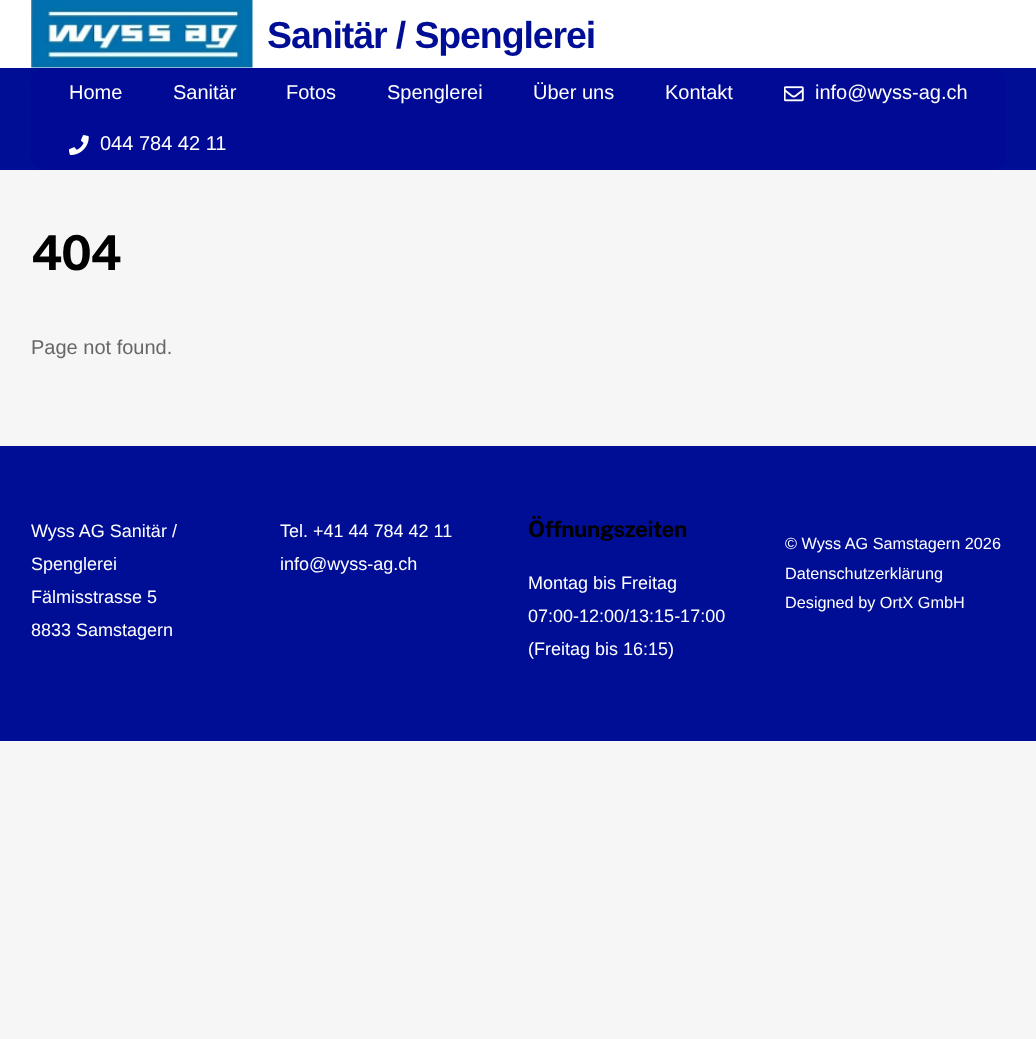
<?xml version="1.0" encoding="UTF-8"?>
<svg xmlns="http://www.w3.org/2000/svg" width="1036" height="1039">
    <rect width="100%" height="100%" fill="#F6F6F6"/>
    <rect x="0" y="0" width="1036" height="68" fill="#FFFFFF"/>
    <image x="31" y="0" width="222" height="68" href="img_01.png"/>
    <text x="267" y="48" font-family="Liberation Sans" font-size="37.5" font-weight="700" letter-spacing="-1.1" fill="#000E95">Sanitär / Spenglerei</text>
    <rect x="0" y="68" width="1036" height="102" fill="#000E95"/>
    <rect x="31" y="68" width="974" height="102" rx="15" fill="#000A94"/>
    <text x="69" y="99" font-family="Liberation Sans" font-size="20" fill="#FFFFFF">Home</text>
    <text x="173" y="99" font-family="Liberation Sans" font-size="20" fill="#FFFFFF">Sanitär</text>
    <text x="286" y="99" font-family="Liberation Sans" font-size="20" fill="#FFFFFF">Fotos</text>
    <text x="387" y="99" font-family="Liberation Sans" font-size="20" fill="#FFFFFF">Spenglerei</text>
    <text x="533" y="99" font-family="Liberation Sans" font-size="20" fill="#FFFFFF">Über uns</text>
    <text x="665" y="99" font-family="Liberation Sans" font-size="20" fill="#FFFFFF">Kontakt</text>
    <image x="784" y="86" width="20" height="16" href="img_02.png"/>
    <text x="815" y="99" font-family="Liberation Sans" font-size="20" fill="#FFFFFF">info@wyss-ag.ch</text>
    <image x="69" y="135" width="20" height="20" href="img_03.png"/>
    <text x="100" y="150" font-family="Liberation Sans" font-size="20" fill="#FFFFFF">044 784 42 11</text>
    <text x="31" y="270" font-family="Public Sans" font-size="48" font-weight="700" letter-spacing="-1.5" fill="#000000">404</text>
    <text x="31" y="354" font-family="Liberation Sans" font-size="20" fill="#666666">Page not found.</text>
    <rect x="0" y="447" width="1036" height="294" fill="#000E95"/>
    <rect x="0" y="446" width="1036" height="1" fill="#000D8E"/>
    <text font-family="Liberation Sans" font-size="18" fill="#FFFFFF">
        <tspan x="31" y="537">Wyss AG Sanitär /</tspan>
        <tspan x="31" y="570">Spenglerei</tspan>
        <tspan x="31" y="603">Fälmisstrasse 5</tspan>
        <tspan x="31" y="636">8833 Samstagern</tspan>
    </text>
    <text font-family="Liberation Sans" font-size="18" fill="#FFFFFF">
        <tspan x="280" y="537">Tel. +41 44 784 42 11</tspan>
        <tspan x="280" y="570">info@wyss-ag.ch</tspan>
    </text>
    <text x="528" y="537" font-family="Public Sans" font-size="22.5" font-weight="700" letter-spacing="-0.5" fill="#000000">Öffnungszeiten</text>
    <text font-family="Liberation Sans" font-size="18" fill="#FFFFFF">
        <tspan x="528" y="589">Montag bis Freitag</tspan>
        <tspan x="528" y="622">07:00-12:00/13:15-17:00</tspan>
        <tspan x="528" y="655">(Freitag bis 16:15)</tspan>
    </text>
    <text font-family="Liberation Sans" font-size="16.25" fill="#FFFFFF">
        <tspan x="785" y="549">© Wyss AG Samstagern 2026</tspan>
        <tspan x="785" y="579">Datenschutzerklärung</tspan>
        <tspan x="785" y="608">Designed by OrtX GmbH</tspan>
    </text>
</svg>
